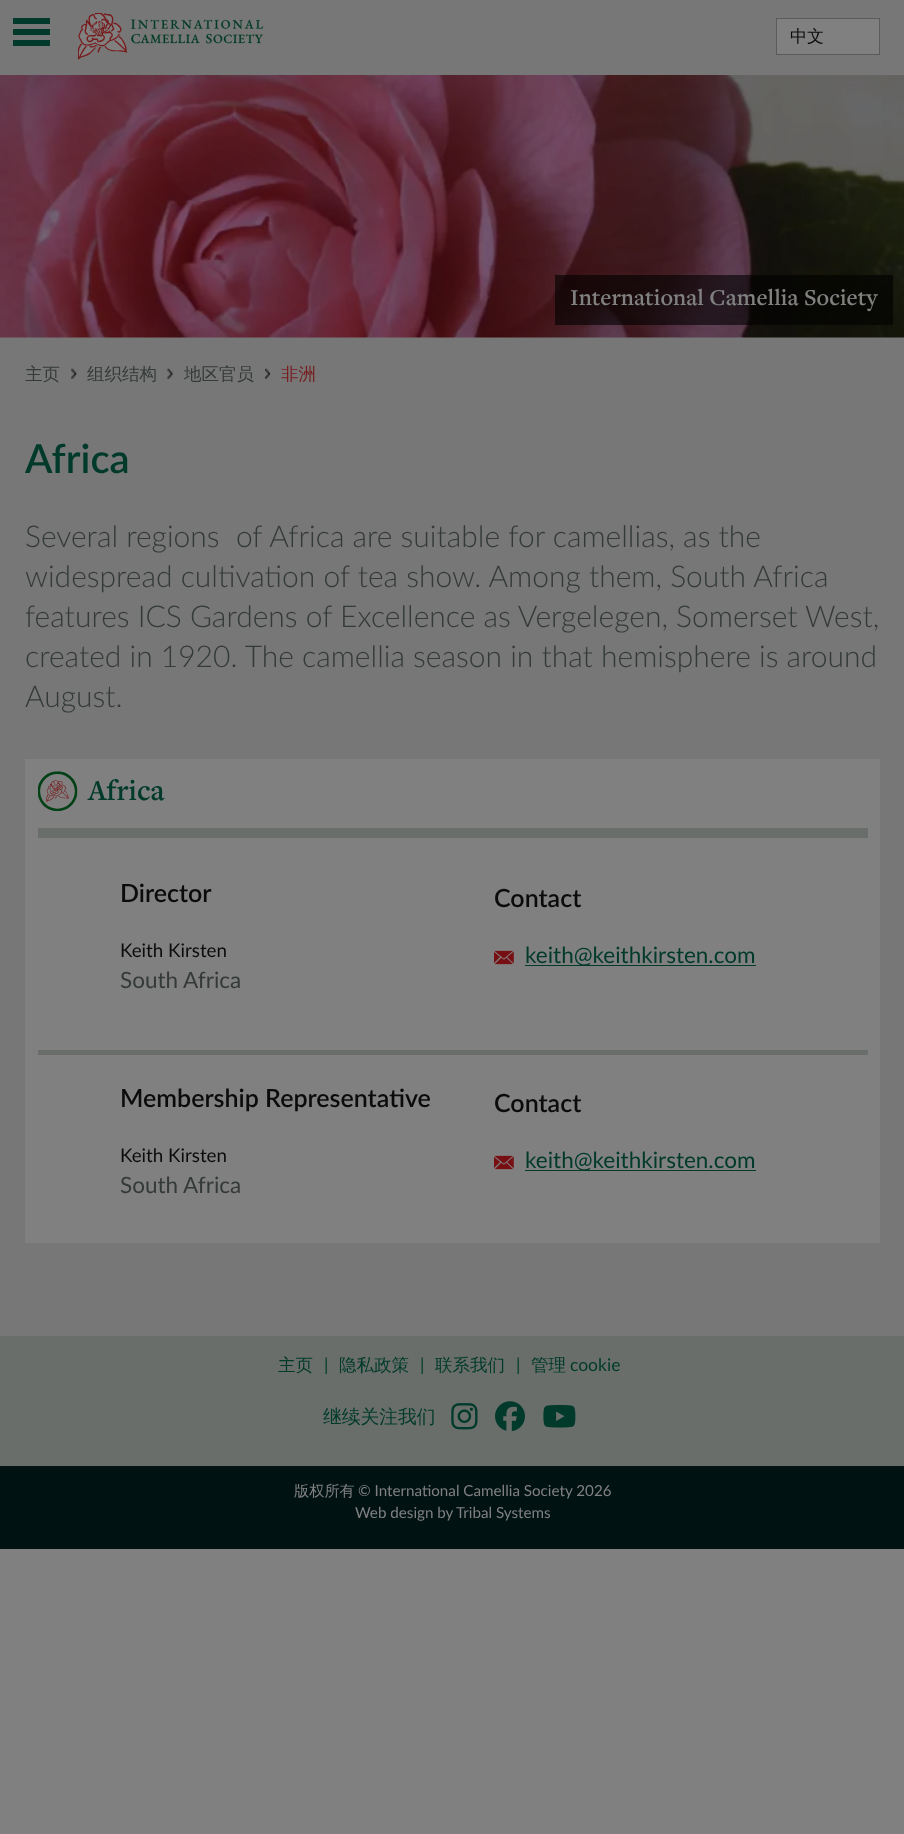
<?xml version="1.0" encoding="UTF-8"?>
<svg xmlns="http://www.w3.org/2000/svg" width="904" height="1834">
    <rect width="100%" height="100%" fill="#808080"/>
    <rect x="0" y="1466" width="904" height="83" fill="#011213"/>
    <rect x="0" y="0" width="904" height="75" fill="#777777"/>
    <rect x="13" y="18" width="37" height="6" fill="#013A2A"/>
    <rect x="13" y="29" width="37" height="6" fill="#013A2A"/>
    <rect x="13" y="40" width="37" height="6" fill="#013A2A"/>
    <image x="78" y="13" width="186" height="47" href="img_01.png"/>
    <rect x="776.5" y="18.5" width="103" height="36" fill="#808080" stroke="#5B5B5B"/>
    <text x="790" y="42" font-family="WenQuanYi Zen Hei" font-size="17" font-weight="500" fill="#0B0B0B">中文</text>
    <rect x="0" y="337" width="904" height="999" fill="#777777"/>
    <image x="0" y="75" width="904" height="263" href="img_02.png"/>
    <rect x="555" y="275" width="338" height="50" fill="#000000" fill-opacity="0.6"/>
    <text x="570" y="305" font-family="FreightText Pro" font-size="23.6" font-weight="600" fill="#808080">International Camellia Society</text>
    <text x="25" y="380" font-family="WenQuanYi Zen Hei" font-size="17.5" font-weight="500" fill="#343A37">主页</text>
    <image x="71" y="368" width="6" height="11" href="img_03.png"/>
    <text x="87" y="380" font-family="WenQuanYi Zen Hei" font-size="17.5" font-weight="500" fill="#343A37">组织结构</text>
    <image x="167" y="368" width="6" height="11" href="img_04.png"/>
    <text x="184" y="380" font-family="WenQuanYi Zen Hei" font-size="17.5" font-weight="500" fill="#343A37">地区官员</text>
    <image x="265" y="368" width="5" height="11" href="img_05.png"/>
    <text x="281" y="380" font-family="WenQuanYi Zen Hei" font-size="17.5" font-weight="500" fill="#771B1D">非洲</text>
    <text x="25" y="473" font-family="Lato" font-size="40" font-weight="600" fill="#013A2A">Africa</text>
    <text font-family="Lato" font-size="30" font-weight="300" fill="#343A37" xml:space="preserve"><tspan x="25" y="547">Several regions  of Africa are suitable for camellias, as the</tspan><tspan x="25" y="587">widespread cultivation of tea show. Among them, South Africa</tspan><tspan x="25" y="627">features ICS Gardens of Excellence as Vergelegen, Somerset West,</tspan><tspan x="25" y="667">created in 1920. The camellia season in that hemisphere is around</tspan><tspan x="25" y="707">August.</tspan></text>
    <rect x="25" y="759" width="855" height="484" fill="#808080"/>
    <image x="38" y="771" width="40" height="40" href="img_06.png"/>
    <rect x="38" y="828" width="830" height="10" fill="#696E6B"/>
    <text x="88" y="800" font-family="FreightText Pro" font-size="30" font-weight="600" fill="#013A2A">Africa</text>
    <rect x="38" y="1050" width="830" height="5" fill="#696E6B"/>
    <text x="120" y="902" font-family="Lato" font-size="25" font-weight="600" fill="#0B0B0B">Director</text>
    <text x="120" y="957" font-family="Lato" font-size="18.75" fill="#0B0B0B">Keith Kirsten</text>
    <text x="120" y="988" font-family="Lato" font-size="22.5" fill="#343A37">South Africa</text>
    <text x="494" y="907" font-family="Lato" font-size="25" font-weight="600" fill="#0B0B0B">Contact</text>
    <image x="494" y="950" width="20" height="15" href="img_07.png"/>
    <rect x="525" y="965" width="231" height="1" fill="#013A2A"/>
    <text x="525" y="963" font-family="Lato" font-size="22.5" fill="#013A2A">keith@keithkirsten.com</text>
    <text x="120" y="1107" font-family="Lato" font-size="25" font-weight="600" fill="#0B0B0B">Membership Representative</text>
    <text x="120" y="1162" font-family="Lato" font-size="18.75" fill="#0B0B0B">Keith Kirsten</text>
    <text x="120" y="1193" font-family="Lato" font-size="22.5" fill="#343A37">South Africa</text>
    <text x="494" y="1112" font-family="Lato" font-size="25" font-weight="600" fill="#0B0B0B">Contact</text>
    <image x="494" y="1155" width="20" height="15" href="img_07.png"/>
    <rect x="525" y="1170" width="231" height="1" fill="#013A2A"/>
    <text x="525" y="1168" font-family="Lato" font-size="22.5" fill="#013A2A">keith@keithkirsten.com</text>
    <rect x="0" y="1336" width="904" height="130" fill="#696E6B"/>
    <text x="278" y="1371" font-family="WenQuanYi Zen Hei" font-size="17.5" font-weight="500" fill="#013A2A">主页</text>
    <text x="324" y="1371" font-family="Lato" font-size="17.5" fill="#013A2A">|</text>
    <text x="339" y="1371" font-family="WenQuanYi Zen Hei" font-size="17.5" font-weight="500" fill="#013A2A">隐私政策</text>
    <text x="420" y="1371" font-family="Lato" font-size="17.5" fill="#013A2A">|</text>
    <text x="435" y="1371" font-family="WenQuanYi Zen Hei" font-size="17.5" font-weight="500" fill="#013A2A">联系我们</text>
    <text x="516" y="1371" font-family="Lato" font-size="17.5" fill="#013A2A">|</text>
    <text x="531" y="1371" font-family="WenQuanYi Zen Hei" font-size="17.5" font-weight="500" fill="#013A2A">管理</text>
    <text x="570" y="1371" font-family="Lato" font-size="17.5" fill="#013A2A">cookie</text>
    <text x="323" y="1423" font-family="WenQuanYi Zen Hei" font-size="18.75" font-weight="500" fill="#013A2A">继续关注我们</text>
    <image x="451" y="1403" width="27" height="27" href="img_08.png"/>
    <image x="495" y="1401" width="30" height="31" href="img_09.png"/>
    <image x="543" y="1405" width="33" height="23" href="img_10.png"/>
    <text x="294" y="1496" font-family="WenQuanYi Zen Hei" font-size="15.2" font-weight="500" fill="#808080">版权所有</text>
    <text x="358" y="1496" font-family="Lato" font-size="15.2" fill="#808080">© International Camellia Society 2026</text>
    <text x="355" y="1518" font-family="Lato" font-size="15.2" fill="#808080">Web design by</text>
    <text x="456" y="1518" font-family="Lato" font-size="15.2" fill="#808080">Tribal Systems</text>
</svg>
